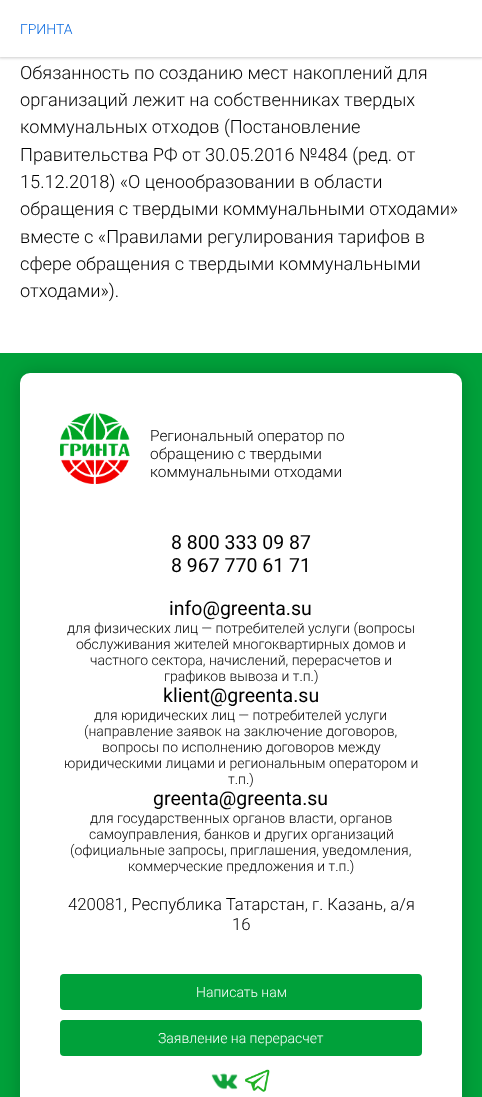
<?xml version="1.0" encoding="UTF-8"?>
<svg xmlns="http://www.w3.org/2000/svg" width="482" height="1097">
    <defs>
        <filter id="blur1" x="-50%" y="-200%" width="200%" height="500%"><feGaussianBlur stdDeviation="1.5"/></filter>
        <filter id="blur2" x="-50%" y="-200%" width="200%" height="500%"><feGaussianBlur stdDeviation="10"/></filter>
    </defs>
    <rect width="100%" height="100%" fill="#FFFFFF"/>
    <rect x="-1" y="-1" width="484" height="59" fill="#000000" fill-opacity="0.2" filter="url(#blur1)"/>
    <rect x="0" y="0" width="482" height="57" fill="#FFFFFF"/>
    <text x="20" y="34" font-family="Roboto" font-size="14" font-weight="300" fill="#0B6AE0">ГРИНТА</text>
    <text font-family="Roboto" font-size="18.2" font-weight="300" fill="#000000">
        <tspan x="20" y="79">Обязанность по созданию мест накоплений для</tspan>
        <tspan x="20" y="106">организаций лежит на собственниках твердых</tspan>
        <tspan x="20" y="133">коммунальных отходов (Постановление</tspan>
        <tspan x="20" y="161">Правительства РФ от 30.05.2016 №484 (ред. от</tspan>
        <tspan x="20" y="188">15.12.2018) «О ценообразовании в области</tspan>
        <tspan x="20" y="215">обращения с твердыми коммунальными отходами»</tspan>
        <tspan x="20" y="243">вместе с «Правилами регулирования тарифов в</tspan>
        <tspan x="20" y="270">сфере обращения с твердыми коммунальными</tspan>
        <tspan x="20" y="297">отходами»).</tspan>
    </text>
    <rect x="0" y="353" width="482" height="744" fill="#00A13A"/>
    <rect x="20" y="373" width="442" height="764" rx="10" fill="#000000" fill-opacity="0.2" filter="url(#blur2)"/>
    <rect x="20" y="373" width="442" height="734" rx="10" fill="#FFFFFF"/>
    <image x="60" y="413" width="70" height="71" href="img_01.png"/>
    <text font-family="Roboto" font-size="15.4" font-weight="300" fill="#000000">
        <tspan x="150" y="441">Региональный оператор по</tspan>
        <tspan x="150" y="459">обращению с твердыми</tspan>
        <tspan x="150" y="477">коммунальными отходами</tspan>
    </text>
    <text font-family="Roboto" font-size="19.5" fill="#000000">
        <tspan x="171" y="549">8 800 333 09 87</tspan>
        <tspan x="171" y="572">8 967 770 61 71</tspan>
    </text>
    <text x="169" y="615" font-family="Roboto" font-size="19.5" fill="#000000">info@greenta.su</text>
    <text x="67" y="633" font-family="Roboto" font-size="14" font-weight="300" fill="#000000">для физических лиц — потребителей услуги (вопросы</text>
    <text x="76" y="649" font-family="Roboto" font-size="14" font-weight="300" fill="#000000">обслуживания жителей многоквартирных домов и</text>
    <text x="90" y="665" font-family="Roboto" font-size="14" font-weight="300" fill="#000000">частного сектора, начислений, перерасчетов и</text>
    <text x="164" y="681" font-family="Roboto" font-size="14" font-weight="300" fill="#000000">графиков вывоза и т.п.)</text>
    <text x="163" y="702" font-family="Roboto" font-size="19.5" fill="#000000">klient@greenta.su</text>
    <text x="94" y="720" font-family="Roboto" font-size="14" font-weight="300" fill="#000000">для юридических лиц — потребителей услуги</text>
    <text x="84" y="736" font-family="Roboto" font-size="14" font-weight="300" fill="#000000">(направление заявок на заключение договоров,</text>
    <text x="102" y="752" font-family="Roboto" font-size="14" font-weight="300" fill="#000000">вопросы по исполнению договоров между</text>
    <text x="64" y="768" font-family="Roboto" font-size="14" font-weight="300" fill="#000000">юридическими лицами и региональным оператором и</text>
    <text x="228" y="784" font-family="Roboto" font-size="14" font-weight="300" fill="#000000">т.п.)</text>
    <text x="153" y="805" font-family="Roboto" font-size="19.5" fill="#000000">greenta@greenta.su</text>
    <text x="90" y="823" font-family="Roboto" font-size="14" font-weight="300" fill="#000000">для государственных органов власти, органов</text>
    <text x="89" y="839" font-family="Roboto" font-size="14" font-weight="300" fill="#000000">самоуправления, банков и других организаций</text>
    <text x="70" y="855" font-family="Roboto" font-size="14" font-weight="300" fill="#000000">(официальные запросы, приглашения, уведомления,</text>
    <text x="128" y="871" font-family="Roboto" font-size="14" font-weight="300" fill="#000000">коммерческие предложения и т.п.)</text>
    <text x="68" y="910" font-family="Roboto" font-size="16.8" font-weight="300" fill="#000000">420081, Республика Татарстан, г. Казань, а/я</text>
    <text x="232" y="930" font-family="Roboto" font-size="16.8" font-weight="300" fill="#000000">16</text>
    <rect x="60" y="974" width="362" height="36" rx="4" fill="#00A13A"/>
    <path d="M 61.5 975.5 L 64 974.5 H 418.5 L 420.5 975.5" fill="none" stroke="#00A13A" stroke-opacity="0.5"/>
    <text x="196" y="997" font-family="Roboto" font-size="14" font-weight="300" fill="#FFFFFF">Написать нам</text>
    <rect x="60" y="1020" width="362" height="36" rx="4" fill="#00A13A"/>
    <path d="M 61.5 1021.5 L 64 1020.5 H 418.5 L 420.5 1021.5" fill="none" stroke="#00A13A" stroke-opacity="0.5"/>
    <text x="158" y="1043" font-family="Roboto" font-size="14" font-weight="300" fill="#FFFFFF">Заявление на перерасчет</text>
    <image x="211" y="1073" width="27" height="17" href="img_02.png"/>
    <image x="245" y="1069" width="25" height="23" href="img_03.png"/>
</svg>
